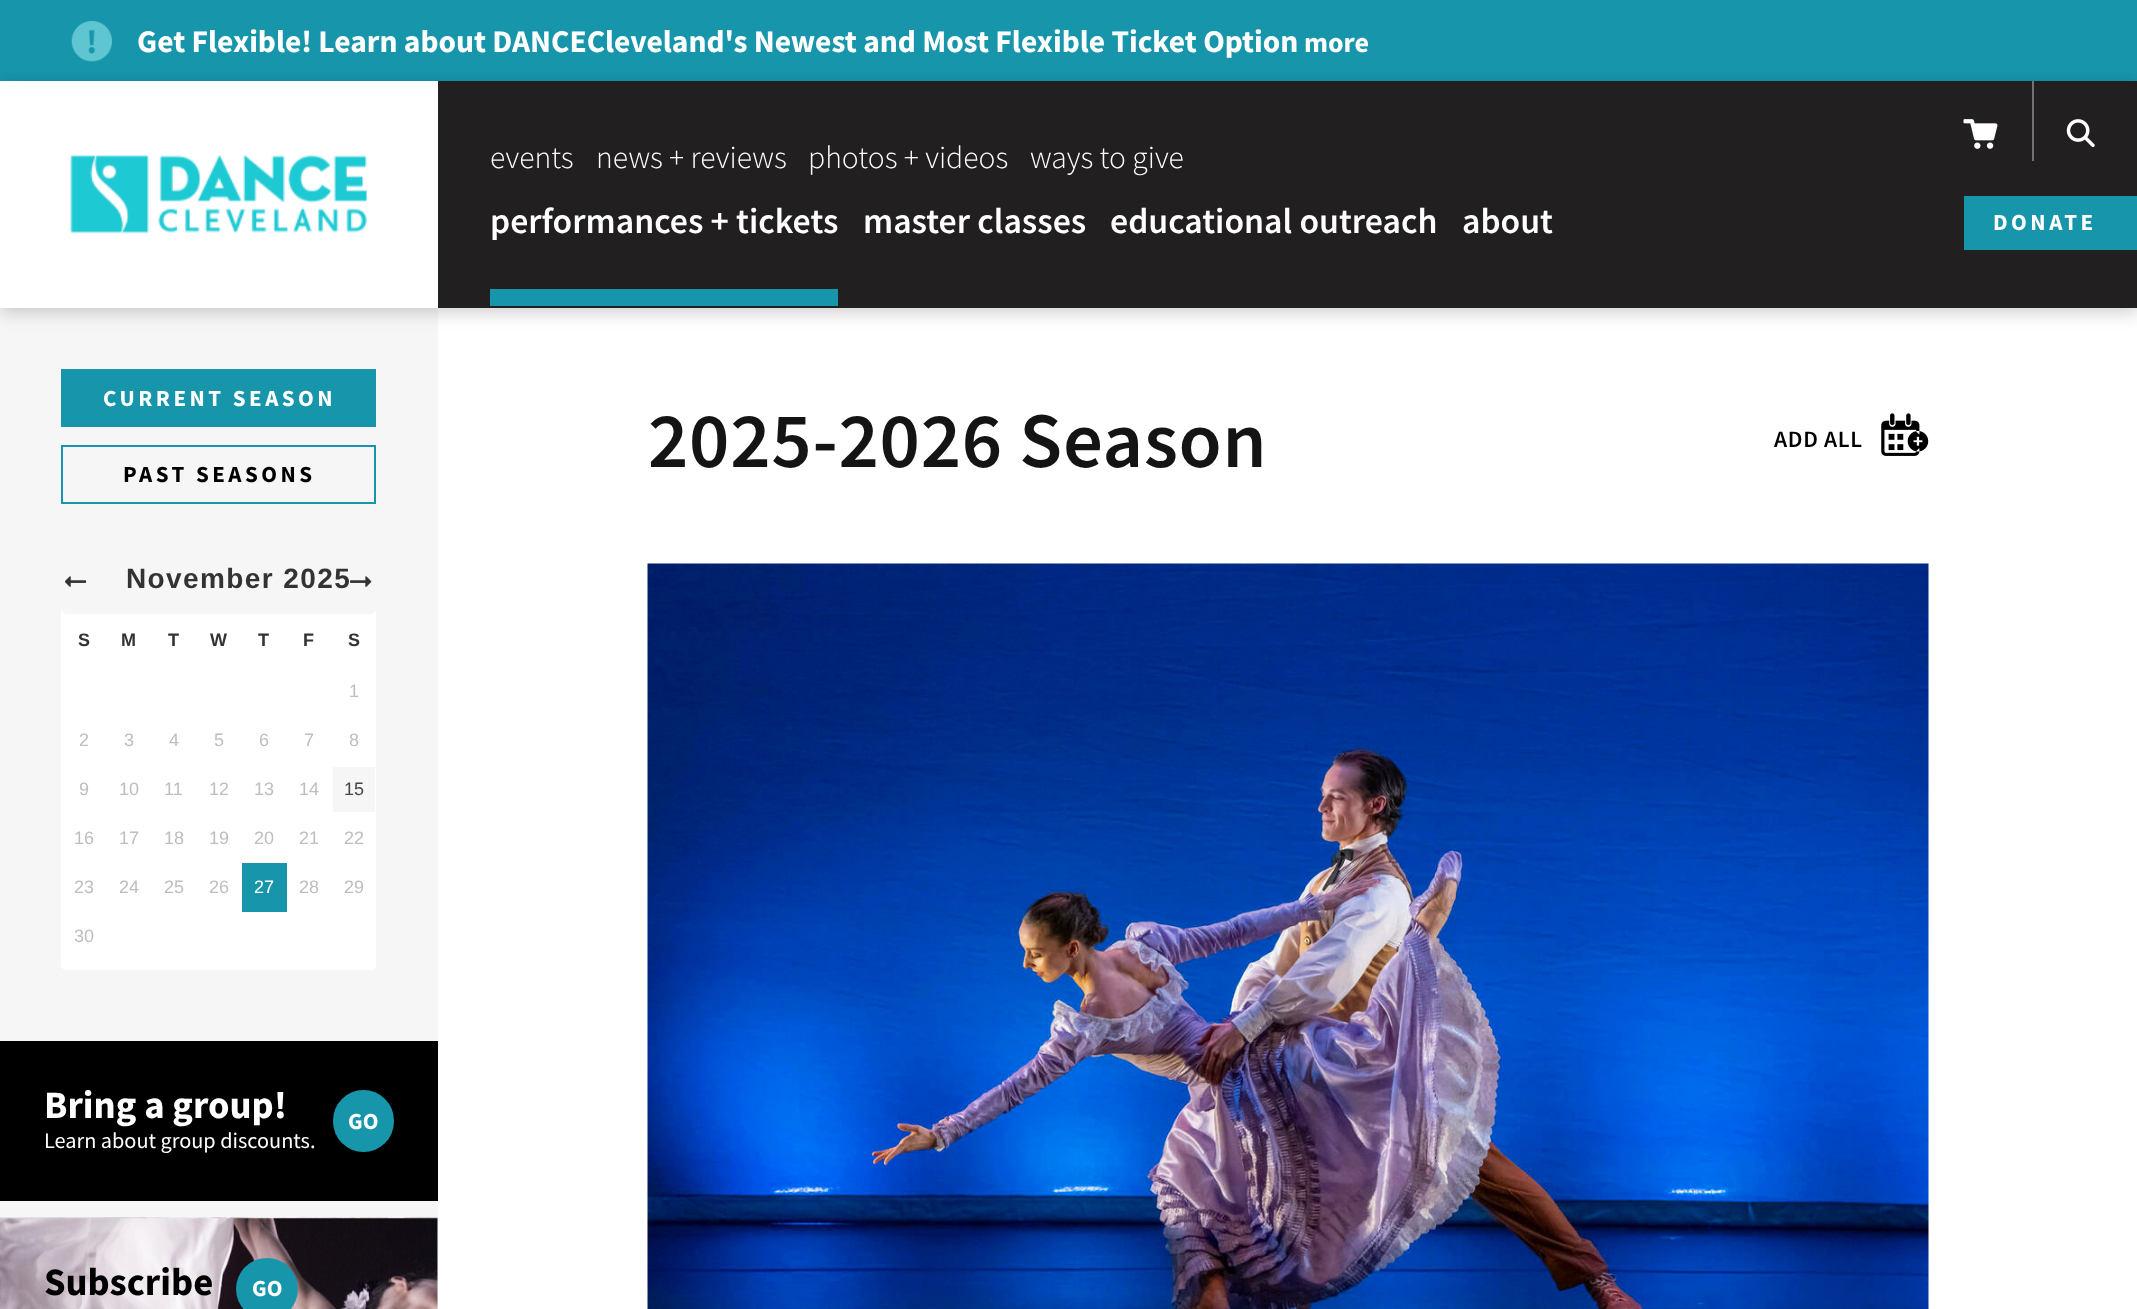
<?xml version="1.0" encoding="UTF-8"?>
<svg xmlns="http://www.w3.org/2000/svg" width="2137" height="1309">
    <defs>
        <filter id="blur1" x="-50%" y="-200%" width="200%" height="500%"><feGaussianBlur stdDeviation="9"/></filter>
    </defs>
    <rect width="100%" height="100%" fill="#FFFFFF"/>
    <rect x="0" y="0" width="2137" height="81" fill="#1796AB"/>
    <image x="71" y="21" width="41" height="41" href="img_01.png"/>
    <text x="137" y="52" font-family="Source Sans Pro" font-size="31.55" font-weight="700" fill="#FFFFFF">Get Flexible! Learn about DANCECleveland's Newest and Most Flexible Ticket Option</text>
    <text x="1304" y="52" font-family="Source Sans Pro" font-size="28" font-weight="700" fill="#FFFFFF">more</text>
    <rect x="0" y="308" width="438" height="1001" fill="#F6F6F6"/>
    <rect x="0" y="84" width="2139" height="228" fill="#000000" fill-opacity="0.2" filter="url(#blur1)"/>
    <rect x="438" y="81" width="1699" height="227" fill="#211F1F"/>
    <rect x="0" y="81" width="438" height="227" fill="#FFFFFF"/>
    <image x="70" y="154" width="297" height="80" href="img_02.png"/>
    <text x="490" y="168" font-family="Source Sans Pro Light" font-size="31.55" font-weight="300" fill="#FFFFFF">events</text>
    <text x="596" y="168" font-family="Source Sans Pro Light" font-size="31.55" font-weight="300" fill="#FFFFFF">news + reviews</text>
    <text x="808" y="168" font-family="Source Sans Pro Light" font-size="31.55" font-weight="300" fill="#FFFFFF">photos + videos</text>
    <text x="1030" y="168" font-family="Source Sans Pro Light" font-size="31.55" font-weight="300" fill="#FFFFFF">ways to give</text>
    <text x="490" y="233" font-family="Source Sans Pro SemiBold" font-size="35.75" font-weight="600" fill="#FFFFFF">performances + tickets</text>
    <rect x="490" y="289" width="348" height="17" fill="#1796AB"/>
    <text x="863" y="233" font-family="Source Sans Pro SemiBold" font-size="35.75" font-weight="600" fill="#FFFFFF">master classes</text>
    <text x="1110" y="233" font-family="Source Sans Pro SemiBold" font-size="35.75" font-weight="600" fill="#FFFFFF">educational outreach</text>
    <text x="1462" y="233" font-family="Source Sans Pro SemiBold" font-size="35.75" font-weight="600" fill="#FFFFFF">about</text>
    <rect x="2032" y="81" width="2" height="80" fill="#727272"/>
    <image x="1963" y="119" width="35" height="30" href="img_03.png"/>
    <image x="2066" y="119" width="29" height="29" href="img_04.png"/>
    <rect x="1964" y="196" width="173" height="54" fill="#1796AB"/>
    <text x="1993" y="230" font-family="Source Sans Pro" font-size="23" font-weight="700" letter-spacing="3.5" fill="#FFFFFF">DONATE</text>
    <rect x="61" y="369" width="315" height="58" fill="#1796AB"/>
    <text x="103" y="406" font-family="Source Sans Pro" font-size="23" font-weight="700" letter-spacing="3.5" fill="#FFFFFF">CURRENT SEASON</text>
    <rect x="62" y="446" width="313" height="57" fill="none" stroke="#1796AB" stroke-width="2"/>
    <text x="123" y="482" font-family="Source Sans Pro" font-size="23" font-weight="700" letter-spacing="3.5" fill="#000000">PAST SEASONS</text>
    <rect x="61" y="551" width="315" height="419" rx="5" fill="#FFFFFF"/>
    <rect x="61" y="551" width="315" height="63" rx="5" fill="#F6F6F6"/>
    <image x="65" y="576" width="22" height="11" href="img_05.png"/>
    <text x="126" y="588" font-family="Liberation Sans" font-size="28" font-weight="700" letter-spacing="1.4" fill="#333333">November 2025</text>
    <image x="350" y="576" width="22" height="11" href="img_06.png"/>
    <text x="78" y="646" font-family="Liberation Sans" font-size="18" font-weight="700" fill="#333333">S</text>
    <text x="121" y="646" font-family="Liberation Sans" font-size="18" font-weight="700" fill="#333333">M</text>
    <text x="168" y="646" font-family="Liberation Sans" font-size="18" font-weight="700" fill="#333333">T</text>
    <text x="210" y="646" font-family="Liberation Sans" font-size="18" font-weight="700" fill="#333333">W</text>
    <text x="258" y="646" font-family="Liberation Sans" font-size="18" font-weight="700" fill="#333333">T</text>
    <text x="303" y="646" font-family="Liberation Sans" font-size="18" font-weight="700" fill="#333333">F</text>
    <text x="348" y="646" font-family="Liberation Sans" font-size="18" font-weight="700" fill="#333333">S</text>
    <text x="349" y="697" font-family="Liberation Sans" font-size="18" fill="#BEBEBE">1</text>
    <text x="79" y="746" font-family="Liberation Sans" font-size="18" fill="#BEBEBE">2</text>
    <text x="124" y="746" font-family="Liberation Sans" font-size="18" fill="#BEBEBE">3</text>
    <text x="169" y="746" font-family="Liberation Sans" font-size="18" fill="#BEBEBE">4</text>
    <text x="214" y="746" font-family="Liberation Sans" font-size="18" fill="#BEBEBE">5</text>
    <text x="259" y="746" font-family="Liberation Sans" font-size="18" fill="#BEBEBE">6</text>
    <text x="304" y="746" font-family="Liberation Sans" font-size="18" fill="#BEBEBE">7</text>
    <text x="349" y="746" font-family="Liberation Sans" font-size="18" fill="#BEBEBE">8</text>
    <text x="79" y="795" font-family="Liberation Sans" font-size="18" fill="#BEBEBE">9</text>
    <text x="119" y="795" font-family="Liberation Sans" font-size="18" fill="#BEBEBE">10</text>
    <text x="164" y="795" font-family="Liberation Sans" font-size="18" fill="#BEBEBE">11</text>
    <text x="209" y="795" font-family="Liberation Sans" font-size="18" fill="#BEBEBE">12</text>
    <text x="254" y="795" font-family="Liberation Sans" font-size="18" fill="#BEBEBE">13</text>
    <text x="299" y="795" font-family="Liberation Sans" font-size="18" fill="#BEBEBE">14</text>
    <rect x="333" y="767" width="42" height="45" fill="#F6F6F6"/>
    <text x="344" y="795" font-family="Liberation Sans" font-size="18" fill="#454545">15</text>
    <text x="74" y="844" font-family="Liberation Sans" font-size="18" fill="#BEBEBE">16</text>
    <text x="119" y="844" font-family="Liberation Sans" font-size="18" fill="#BEBEBE">17</text>
    <text x="164" y="844" font-family="Liberation Sans" font-size="18" fill="#BEBEBE">18</text>
    <text x="209" y="844" font-family="Liberation Sans" font-size="18" fill="#BEBEBE">19</text>
    <text x="254" y="844" font-family="Liberation Sans" font-size="18" fill="#BEBEBE">20</text>
    <text x="299" y="844" font-family="Liberation Sans" font-size="18" fill="#BEBEBE">21</text>
    <text x="344" y="844" font-family="Liberation Sans" font-size="18" fill="#BEBEBE">22</text>
    <text x="74" y="893" font-family="Liberation Sans" font-size="18" fill="#BEBEBE">23</text>
    <text x="119" y="893" font-family="Liberation Sans" font-size="18" fill="#BEBEBE">24</text>
    <text x="164" y="893" font-family="Liberation Sans" font-size="18" fill="#BEBEBE">25</text>
    <text x="209" y="893" font-family="Liberation Sans" font-size="18" fill="#BEBEBE">26</text>
    <rect x="242" y="863" width="45" height="49" fill="#1796AB"/>
    <text x="254" y="893" font-family="Liberation Sans" font-size="18" fill="#FFFFFF">27</text>
    <text x="299" y="893" font-family="Liberation Sans" font-size="18" fill="#BEBEBE">28</text>
    <text x="344" y="893" font-family="Liberation Sans" font-size="18" fill="#BEBEBE">29</text>
    <text x="74" y="942" font-family="Liberation Sans" font-size="18" fill="#BEBEBE">30</text>
    <rect x="0" y="1041" width="438" height="160" fill="#000000"/>
    <text x="44" y="1118" font-family="Source Sans Pro" font-size="38.75" font-weight="700" fill="#FFFFFF">Bring a group!</text>
    <rect x="333" y="1090" width="61" height="62" rx="30.5" fill="#1796AB"/>
    <text x="348" y="1129" font-family="Source Sans Pro" font-size="23" font-weight="700" fill="#FFFFFF">GO</text>
    <text x="44" y="1148" font-family="Source Sans Pro" font-size="22.25" fill="#FFFFFF">Learn about group discounts.</text>
    <image x="0" y="1217" width="438" height="92" href="img_07.png"/>
    <text x="44" y="1295" font-family="Source Sans Pro" font-size="38.75" font-weight="700" fill="#000000">Subscribe</text>
    <circle cx="267" cy="1289" r="31" fill="#1796AB"/>
    <text x="252" y="1296" font-family="Source Sans Pro" font-size="23" font-weight="700" fill="#FFFFFF">GO</text>
    <text x="648" y="467" font-family="Source Sans Pro SemiBold" font-size="78.75" font-weight="600" letter-spacing="0.7" fill="#141414">2025-2026 Season</text>
    <text x="1774" y="447" font-family="Source Sans Pro SemiBold" font-size="23.5" font-weight="600" letter-spacing="0.7" fill="#000000">ADD ALL</text>
    <image x="1881" y="413" width="48" height="43" href="img_08.png"/>
    <image x="647" y="563" width="1282" height="746" href="img_09.png"/>
</svg>
